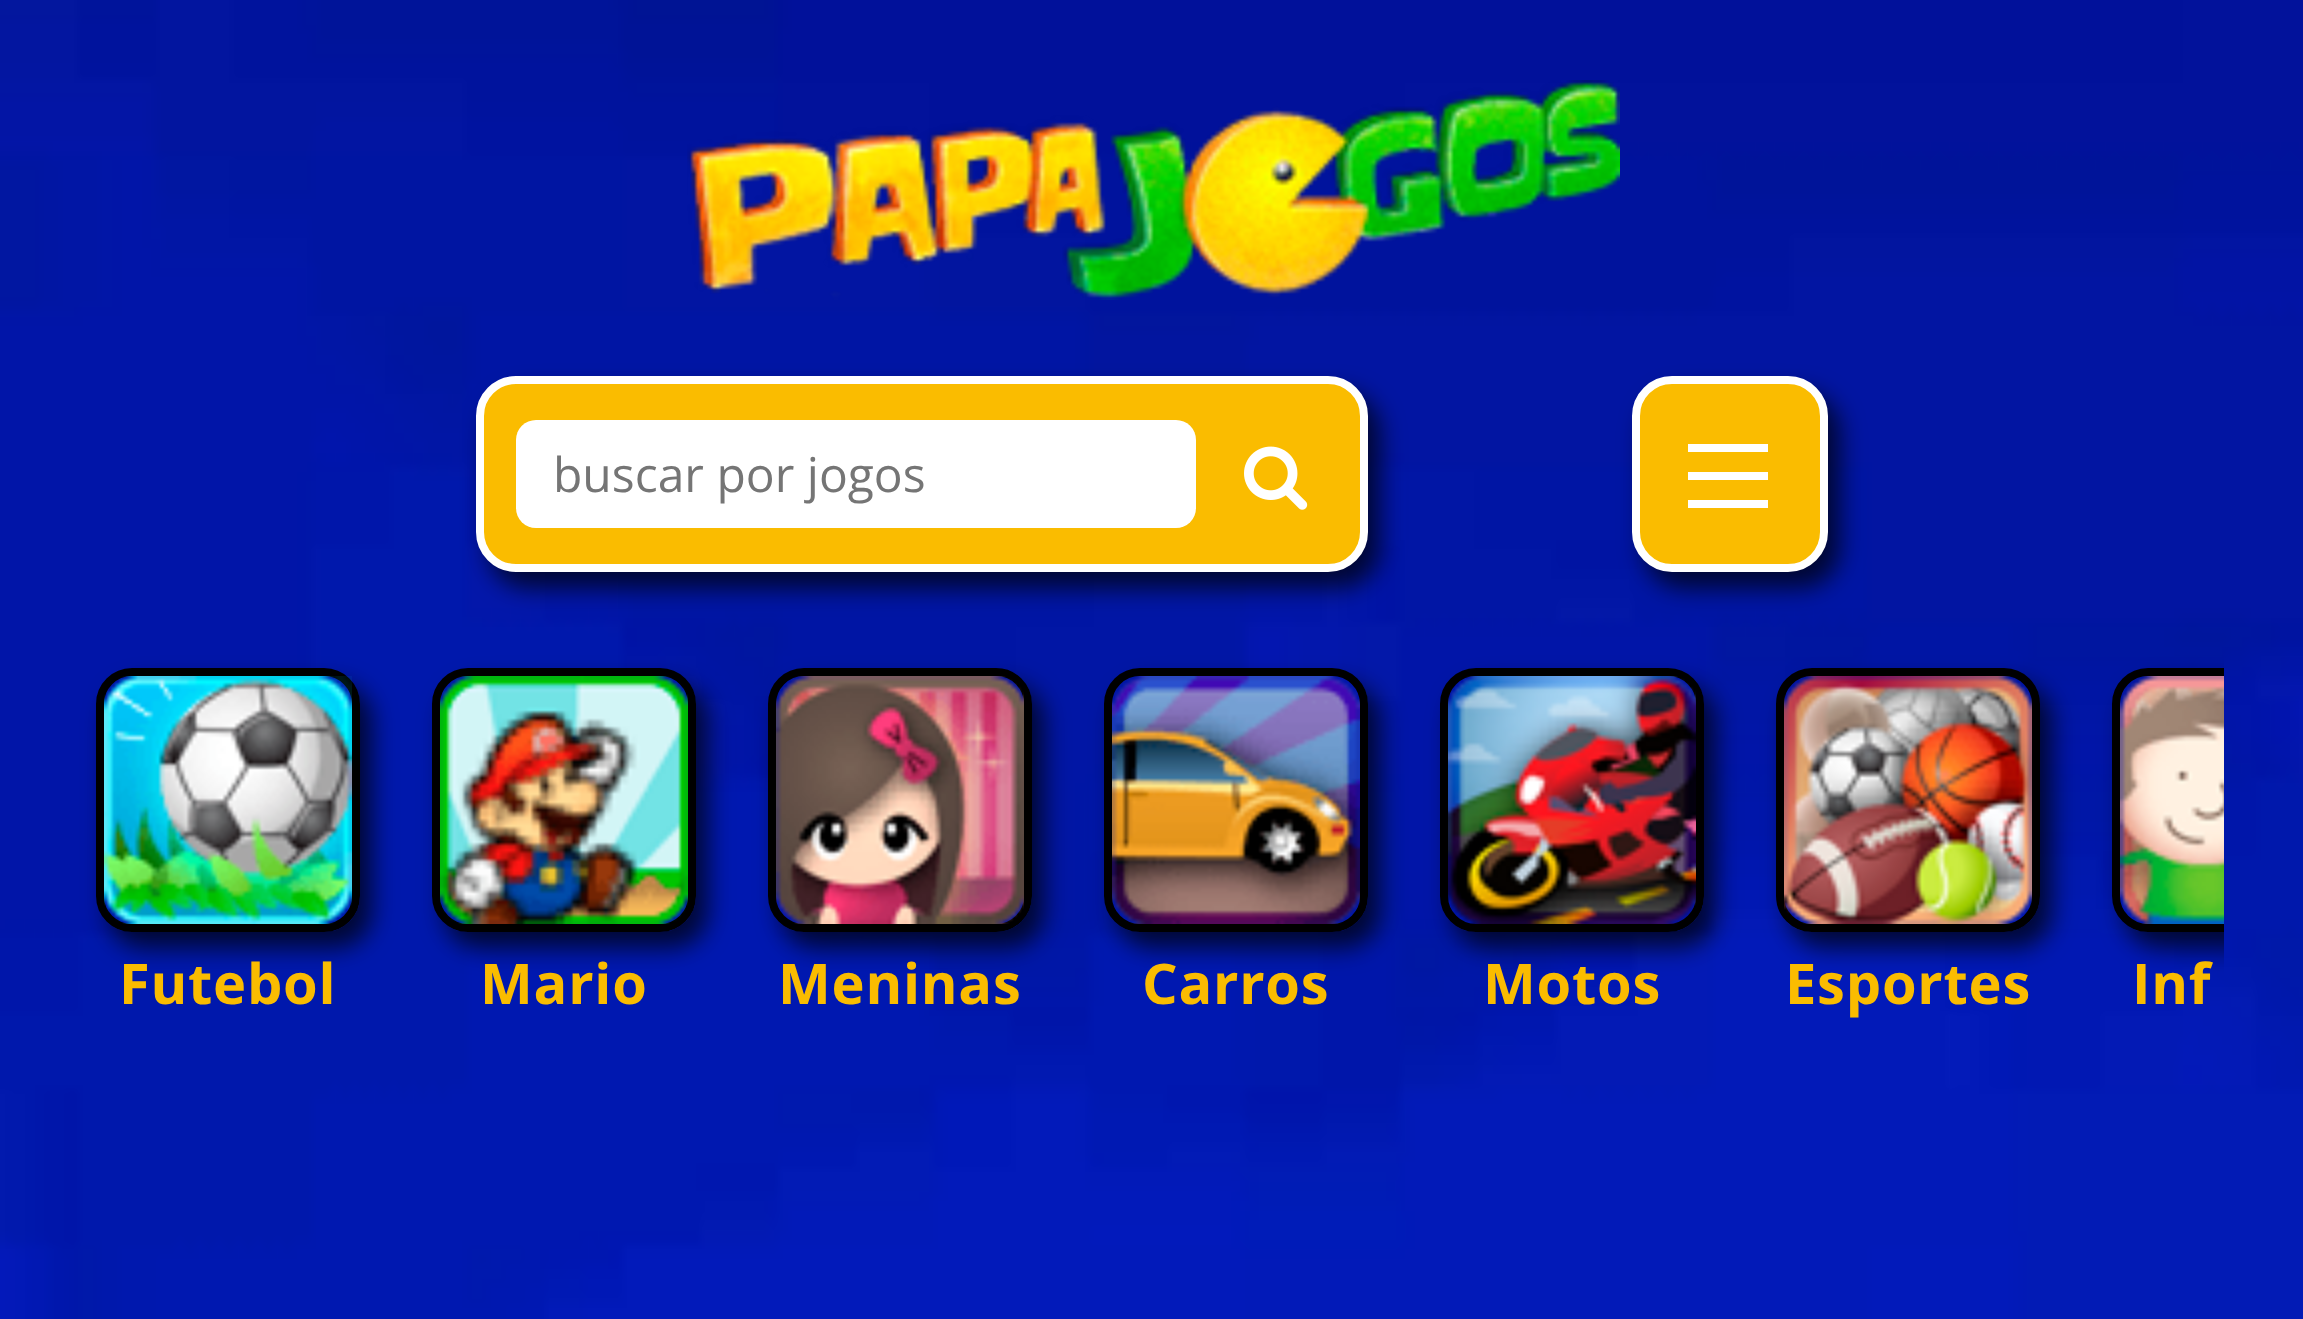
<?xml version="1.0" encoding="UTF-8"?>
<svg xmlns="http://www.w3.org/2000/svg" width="2303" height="1319">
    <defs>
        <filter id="blur1" x="-50%" y="-200%" width="200%" height="500%"><feGaussianBlur stdDeviation="12"/></filter>
        <clipPath id="clip1"><path d="M 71 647 H 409 V 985 H 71 Z M 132 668 H 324 C 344 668 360 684 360 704 V 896 C 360 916 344 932 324 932 H 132 C 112 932 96 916 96 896 V 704 C 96 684 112 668 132 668 Z" clip-rule="evenodd"/></clipPath>
        <clipPath id="clip2"><path d="M 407 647 H 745 V 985 H 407 Z M 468 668 H 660 C 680 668 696 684 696 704 V 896 C 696 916 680 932 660 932 H 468 C 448 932 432 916 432 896 V 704 C 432 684 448 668 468 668 Z" clip-rule="evenodd"/></clipPath>
        <clipPath id="clip3"><path d="M 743 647 H 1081 V 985 H 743 Z M 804 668 H 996 C 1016 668 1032 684 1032 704 V 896 C 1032 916 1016 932 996 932 H 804 C 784 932 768 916 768 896 V 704 C 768 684 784 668 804 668 Z" clip-rule="evenodd"/></clipPath>
        <clipPath id="clip4"><path d="M 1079 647 H 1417 V 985 H 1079 Z M 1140 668 H 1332 C 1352 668 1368 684 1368 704 V 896 C 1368 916 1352 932 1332 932 H 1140 C 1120 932 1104 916 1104 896 V 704 C 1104 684 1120 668 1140 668 Z" clip-rule="evenodd"/></clipPath>
        <clipPath id="clip5"><path d="M 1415 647 H 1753 V 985 H 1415 Z M 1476 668 H 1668 C 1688 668 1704 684 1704 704 V 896 C 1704 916 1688 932 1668 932 H 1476 C 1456 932 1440 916 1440 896 V 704 C 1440 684 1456 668 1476 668 Z" clip-rule="evenodd"/></clipPath>
        <clipPath id="clip6"><path d="M 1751 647 H 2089 V 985 H 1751 Z M 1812 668 H 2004 C 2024 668 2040 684 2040 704 V 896 C 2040 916 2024 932 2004 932 H 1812 C 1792 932 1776 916 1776 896 V 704 C 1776 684 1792 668 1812 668 Z" clip-rule="evenodd"/></clipPath>
        <clipPath id="clip7"><rect x="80" y="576" width="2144" height="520"/></clipPath>
        <clipPath id="clip8"><path d="M 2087 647 H 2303 V 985 H 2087 Z M 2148 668 H 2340 C 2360 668 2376 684 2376 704 V 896 C 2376 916 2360 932 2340 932 H 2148 C 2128 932 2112 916 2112 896 V 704 C 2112 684 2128 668 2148 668 Z" clip-rule="evenodd"/></clipPath>
        <clipPath id="clip9"><rect x="80" y="576" width="2144" height="520"/></clipPath>
    </defs>
    <rect width="100%" height="100%" fill="#FFFFFF"/>
    <image x="0" y="0" width="2303" height="1319" href="img_01.png"/>
    <image x="687" y="80" width="933" height="220" href="img_02.png"/>
    <rect x="488" y="392" width="892" height="196" rx="40" fill="#000000" fill-opacity="0.7" filter="url(#blur1)"/>
    <rect x="480" y="380" width="884" height="188" rx="36" fill="#FABC00" stroke="#FFFFFF" stroke-width="8"/>
    <rect x="516" y="420" width="680" height="108" rx="20" fill="#FFFFFF"/>
    <text x="553" y="492" font-family="Open Sans" font-size="48" fill="#757575">buscar por jogos</text>
    <image x="1244" y="446" width="64" height="64" href="img_03.png"/>
    <rect x="1644" y="392" width="196" height="196" rx="40" fill="#000000" fill-opacity="0.7" filter="url(#blur1)"/>
    <rect x="1636" y="380" width="188" height="188" rx="36" fill="#FABC00" stroke="#FFFFFF" stroke-width="8"/>
    <rect x="1688" y="444" width="80" height="8" fill="#FFFFFF"/>
    <rect x="1688" y="472" width="80" height="8" fill="#FFFFFF"/>
    <rect x="1688" y="500" width="80" height="8" fill="#FFFFFF"/>
    <g clip-path="url(#clip1)">
        <rect x="108" y="684" width="264" height="264" rx="36" fill="#000000" fill-opacity="0.7" filter="url(#blur1)"/>
    </g>
    <rect x="100" y="672" width="256" height="256" rx="32" fill="none" stroke="#000000" stroke-width="8"/>
    <image x="104" y="676" width="248" height="248" href="img_04.png"/>
    <text x="119" y="1004" font-family="Open Sans" font-size="56" font-weight="700" letter-spacing="0.75" fill="#FABC00">Futebol</text>
    <g clip-path="url(#clip2)">
        <rect x="444" y="684" width="264" height="264" rx="36" fill="#000000" fill-opacity="0.7" filter="url(#blur1)"/>
    </g>
    <rect x="436" y="672" width="256" height="256" rx="32" fill="none" stroke="#000000" stroke-width="8"/>
    <image x="440" y="676" width="248" height="248" href="img_05.png"/>
    <text x="480" y="1004" font-family="Open Sans" font-size="56" font-weight="700" letter-spacing="0.75" fill="#FABC00">Mario</text>
    <g clip-path="url(#clip3)">
        <rect x="780" y="684" width="264" height="264" rx="36" fill="#000000" fill-opacity="0.7" filter="url(#blur1)"/>
    </g>
    <rect x="772" y="672" width="256" height="256" rx="32" fill="none" stroke="#000000" stroke-width="8"/>
    <image x="776" y="676" width="248" height="248" href="img_06.png"/>
    <text x="778" y="1004" font-family="Open Sans" font-size="56" font-weight="700" letter-spacing="0.75" fill="#FABC00">Meninas</text>
    <g clip-path="url(#clip4)">
        <rect x="1116" y="684" width="264" height="264" rx="36" fill="#000000" fill-opacity="0.7" filter="url(#blur1)"/>
    </g>
    <rect x="1108" y="672" width="256" height="256" rx="32" fill="none" stroke="#000000" stroke-width="8"/>
    <image x="1112" y="676" width="248" height="248" href="img_07.png"/>
    <text x="1142" y="1004" font-family="Open Sans" font-size="56" font-weight="700" letter-spacing="0.75" fill="#FABC00">Carros</text>
    <g clip-path="url(#clip5)">
        <rect x="1452" y="684" width="264" height="264" rx="36" fill="#000000" fill-opacity="0.7" filter="url(#blur1)"/>
    </g>
    <rect x="1444" y="672" width="256" height="256" rx="32" fill="none" stroke="#000000" stroke-width="8"/>
    <image x="1448" y="676" width="248" height="248" href="img_08.png"/>
    <text x="1483" y="1004" font-family="Open Sans" font-size="56" font-weight="700" letter-spacing="0.75" fill="#FABC00">Motos</text>
    <g clip-path="url(#clip6)">
        <rect x="1788" y="684" width="264" height="264" rx="36" fill="#000000" fill-opacity="0.7" filter="url(#blur1)"/>
    </g>
    <rect x="1780" y="672" width="256" height="256" rx="32" fill="none" stroke="#000000" stroke-width="8"/>
    <image x="1784" y="676" width="248" height="248" href="img_09.png"/>
    <text x="1785" y="1004" font-family="Open Sans" font-size="56" font-weight="700" letter-spacing="0.75" fill="#FABC00">Esportes</text>
    <g clip-path="url(#clip7)">
        <g clip-path="url(#clip8)">
            <rect x="2124" y="684" width="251" height="264" rx="36" fill="#000000" fill-opacity="0.7" filter="url(#blur1)"/>
        </g>
    </g>
    <g clip-path="url(#clip9)">
        <rect x="2116" y="672" width="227" height="256" rx="32" fill="none" stroke="#000000" stroke-width="8"/>
    </g>
    <image x="2120" y="676" width="104" height="248" href="img_10.png"/>
    <text x="2132" y="1004" font-family="Open Sans" font-size="56" font-weight="700" letter-spacing="0.75" fill="#FABC00">Inf</text>
</svg>
